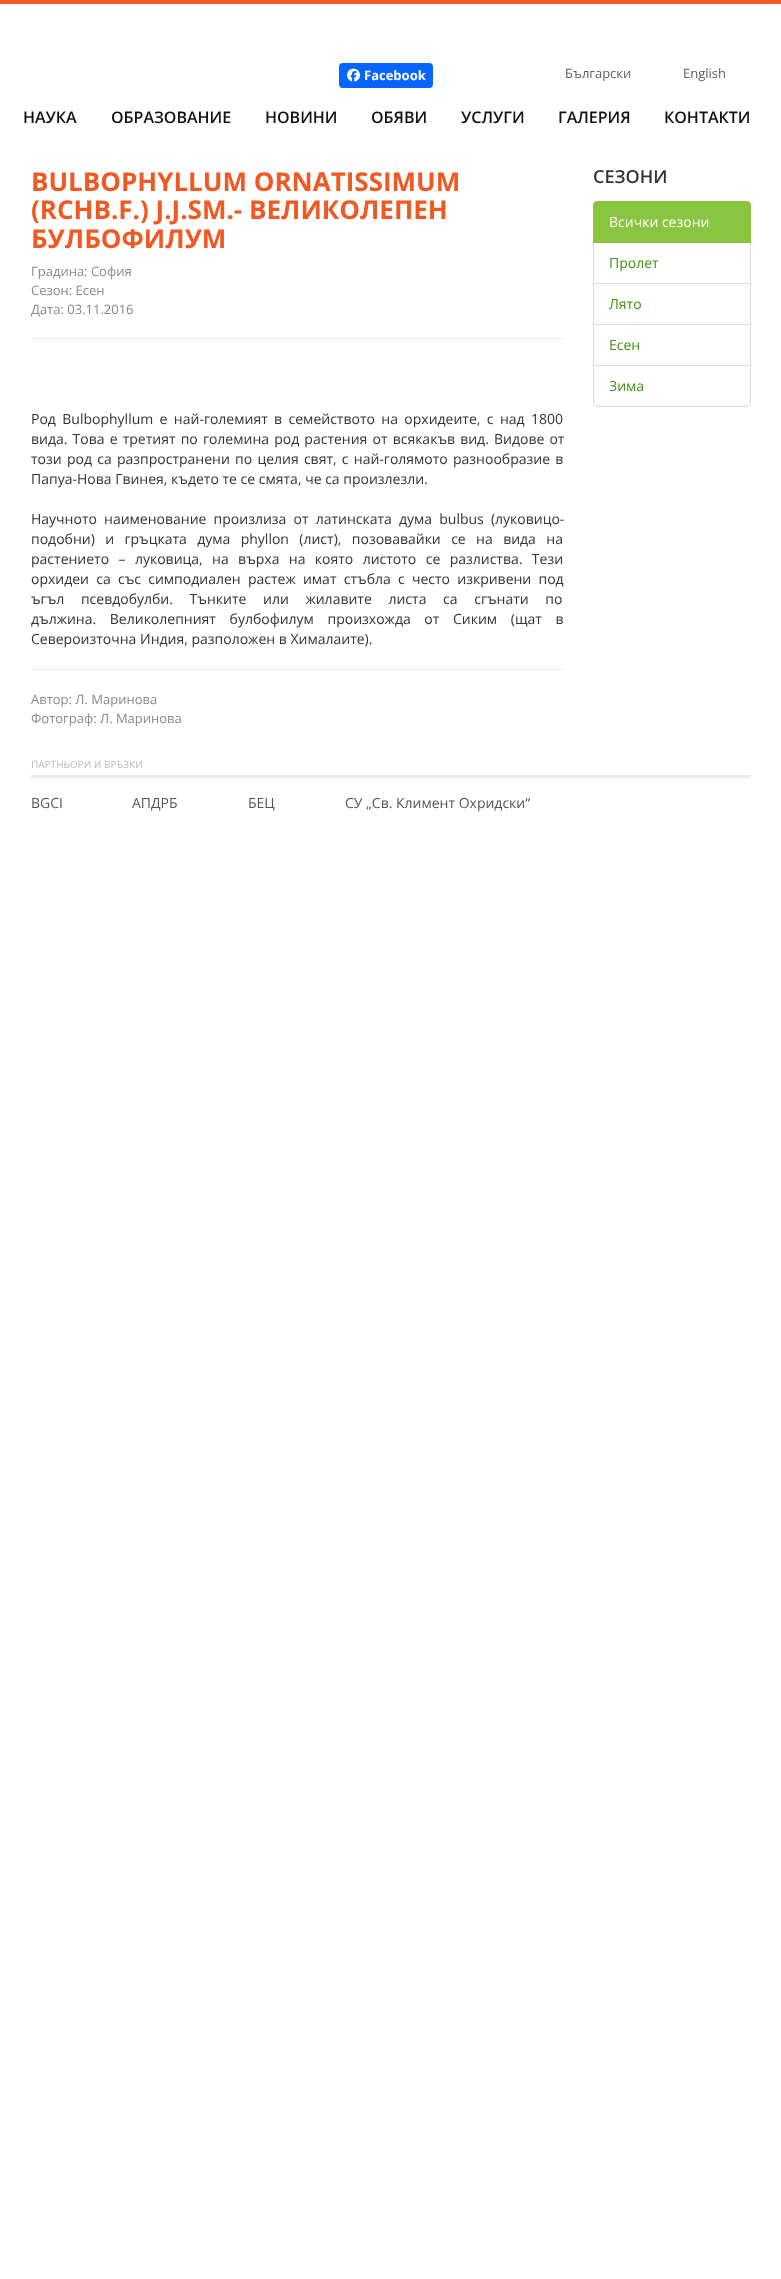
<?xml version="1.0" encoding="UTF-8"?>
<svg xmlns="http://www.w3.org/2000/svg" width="781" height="2279">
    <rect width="100%" height="100%" fill="#FFFFFF"/>
    <rect x="0" y="0" width="781" height="4" fill="#F15922"/>
    <rect x="339" y="63" width="94" height="25" rx="4" fill="#0866FF"/>
    <image x="347" y="68" width="13" height="14" href="img_01.png"/>
    <text x="364" y="80" font-family="Open Sans" font-size="13" font-weight="700" fill="#FFFFFF">Facebook</text>
    <text x="565" y="78" font-family="Open Sans" font-size="13" fill="#5D5D5D">Български</text>
    <text x="683" y="78" font-family="Open Sans" font-size="13" fill="#5D5D5D">English</text>
    <text x="23" y="123" font-family="Open Sans" font-size="16" font-weight="600" fill="#111111">НАУКА</text>
    <text x="111" y="123" font-family="Open Sans" font-size="16" font-weight="600" fill="#111111">ОБРАЗОВАНИЕ</text>
    <text x="265" y="123" font-family="Open Sans" font-size="16" font-weight="600" fill="#111111">НОВИНИ</text>
    <text x="371" y="123" font-family="Open Sans" font-size="16" font-weight="600" fill="#111111">ОБЯВИ</text>
    <text x="461" y="123" font-family="Open Sans" font-size="16" font-weight="600" fill="#111111">УСЛУГИ</text>
    <text x="558" y="123" font-family="Open Sans" font-size="16" font-weight="600" fill="#111111">ГАЛЕРИЯ</text>
    <text x="664" y="123" font-family="Open Sans" font-size="16" font-weight="600" fill="#111111">КОНТАКТИ</text>
    <text font-family="Open Sans" font-size="26" font-weight="700" fill="#F15922">
        <tspan x="31" y="191">BULBOPHYLLUM ORNATISSIMUM</tspan>
        <tspan x="31" y="219">(RCHB.F.) J.J.SM.- ВЕЛИКОЛЕПЕН</tspan>
        <tspan x="31" y="248">БУЛБОФИЛУМ</tspan>
    </text>
    <text font-family="Open Sans" font-size="13" fill="#888888">
        <tspan x="31" y="276">Градина: София</tspan>
        <tspan x="31" y="295">Сезон: Есен</tspan>
        <tspan x="31" y="314">Дата: 03.11.2016</tspan>
    </text>
    <rect x="31" y="338" width="532" height="1" fill="#EEEEEE"/>
    <text font-family="Open Sans" font-size="14" fill="#333333">
        <tspan x="31" y="424" word-spacing="2.75">Род Bulbophyllum е най-големият в семейството на орхидеите, с над 1800</tspan>
        <tspan x="31" y="444" word-spacing="1.5">вида. Това е третият по големина род растения от всякакъв вид. Видове от</tspan>
        <tspan x="31" y="464" word-spacing="1.6">този род са разпространени по целия свят, с най-голямото разнообразие в</tspan>
        <tspan x="31" y="484">Папуа-Нова Гвинея, където те се смята, че са произлезли.</tspan>
    </text>
    <text font-family="Open Sans" font-size="14" fill="#333333">
        <tspan x="31" y="524" word-spacing="3.5">Научното наименование произлиза от латинската дума bulbus (луковицо-</tspan>
        <tspan x="31" y="544" word-spacing="6.75">подобни) и гръцката дума phyllon (лист), позовавайки се на вида на</tspan>
        <tspan x="31" y="564" word-spacing="5.75">растението – луковица, на върха на която листото се разлиства. Тези</tspan>
        <tspan x="31" y="584" word-spacing="3.6">орхидеи са със симподиален растеж имат стъбла с често изкривени под</tspan>
        <tspan x="31" y="604" word-spacing="13">ъгъл псевдобулби. Тънките или жилавите листа са сгънати по</tspan>
        <tspan x="31" y="624" word-spacing="10">дължина. Великолепният булбофилум произхожда от Сиким (щат в</tspan>
        <tspan x="31" y="644">Североизточна Индия, разположен в Хималаите).</tspan>
    </text>
    <rect x="31" y="669" width="532" height="1" fill="#EEEEEE"/>
    <text font-family="Open Sans" font-size="13" fill="#888888">
        <tspan x="31" y="704">Автор: Л. Маринова</tspan>
        <tspan x="31" y="723">Фотограф: Л. Маринова</tspan>
    </text>
    <text x="593" y="183" font-family="Open Sans" font-size="18" font-weight="600" fill="#333333">СЕЗОНИ</text>
    <rect x="593.5" y="242.5" width="157" height="41" fill="none" stroke="#DDDDDD"/>
    <path d="M 597 201.5 H 747 C 749 201.5 750.5 203 750.5 205 V 242.5 H 593.5 V 205 C 593.5 203 595 201.5 597 201.5 Z" fill="#89C53F" stroke="#89C53F"/>
    <text x="609" y="227" font-family="Open Sans" font-size="14" fill="#FFFFFF">Всички сезони</text>
    <text x="609" y="268" font-family="Open Sans" font-size="14" fill="#458F13">Пролет</text>
    <rect x="593.5" y="283.5" width="157" height="41" fill="none" stroke="#DDDDDD"/>
    <text x="609" y="309" font-family="Open Sans" font-size="14" fill="#458F13">Лято</text>
    <rect x="593.5" y="324.5" width="157" height="41" fill="none" stroke="#DDDDDD"/>
    <text x="609" y="350" font-family="Open Sans" font-size="14" fill="#458F13">Есен</text>
    <path d="M 593.5 365.5 H 750.5 V 403 C 750.5 405 749 406.5 747 406.5 H 597 C 595 406.5 593.5 405 593.5 403 Z" fill="#FFFFFF" stroke="#DDDDDD"/>
    <text x="609" y="391" font-family="Open Sans" font-size="14" fill="#458F13">Зима</text>
    <rect x="31" y="775" width="720" height="3" fill="#EBEBEB"/>
    <text x="31" y="768" font-family="Open Sans" font-size="10" fill="#BBBBBB">ПАРТНЬОРИ И ВРЪЗКИ</text>
    <text x="31" y="808" font-family="Open Sans" font-size="14" fill="#555555">BGCI</text>
    <text x="132" y="808" font-family="Open Sans" font-size="14" fill="#555555">АПДРБ</text>
    <text x="248" y="808" font-family="Open Sans" font-size="14" fill="#555555">БЕЦ</text>
    <text x="345" y="808" font-family="Open Sans" font-size="14" fill="#555555">СУ „Св. Климент Охридски“</text>
</svg>
